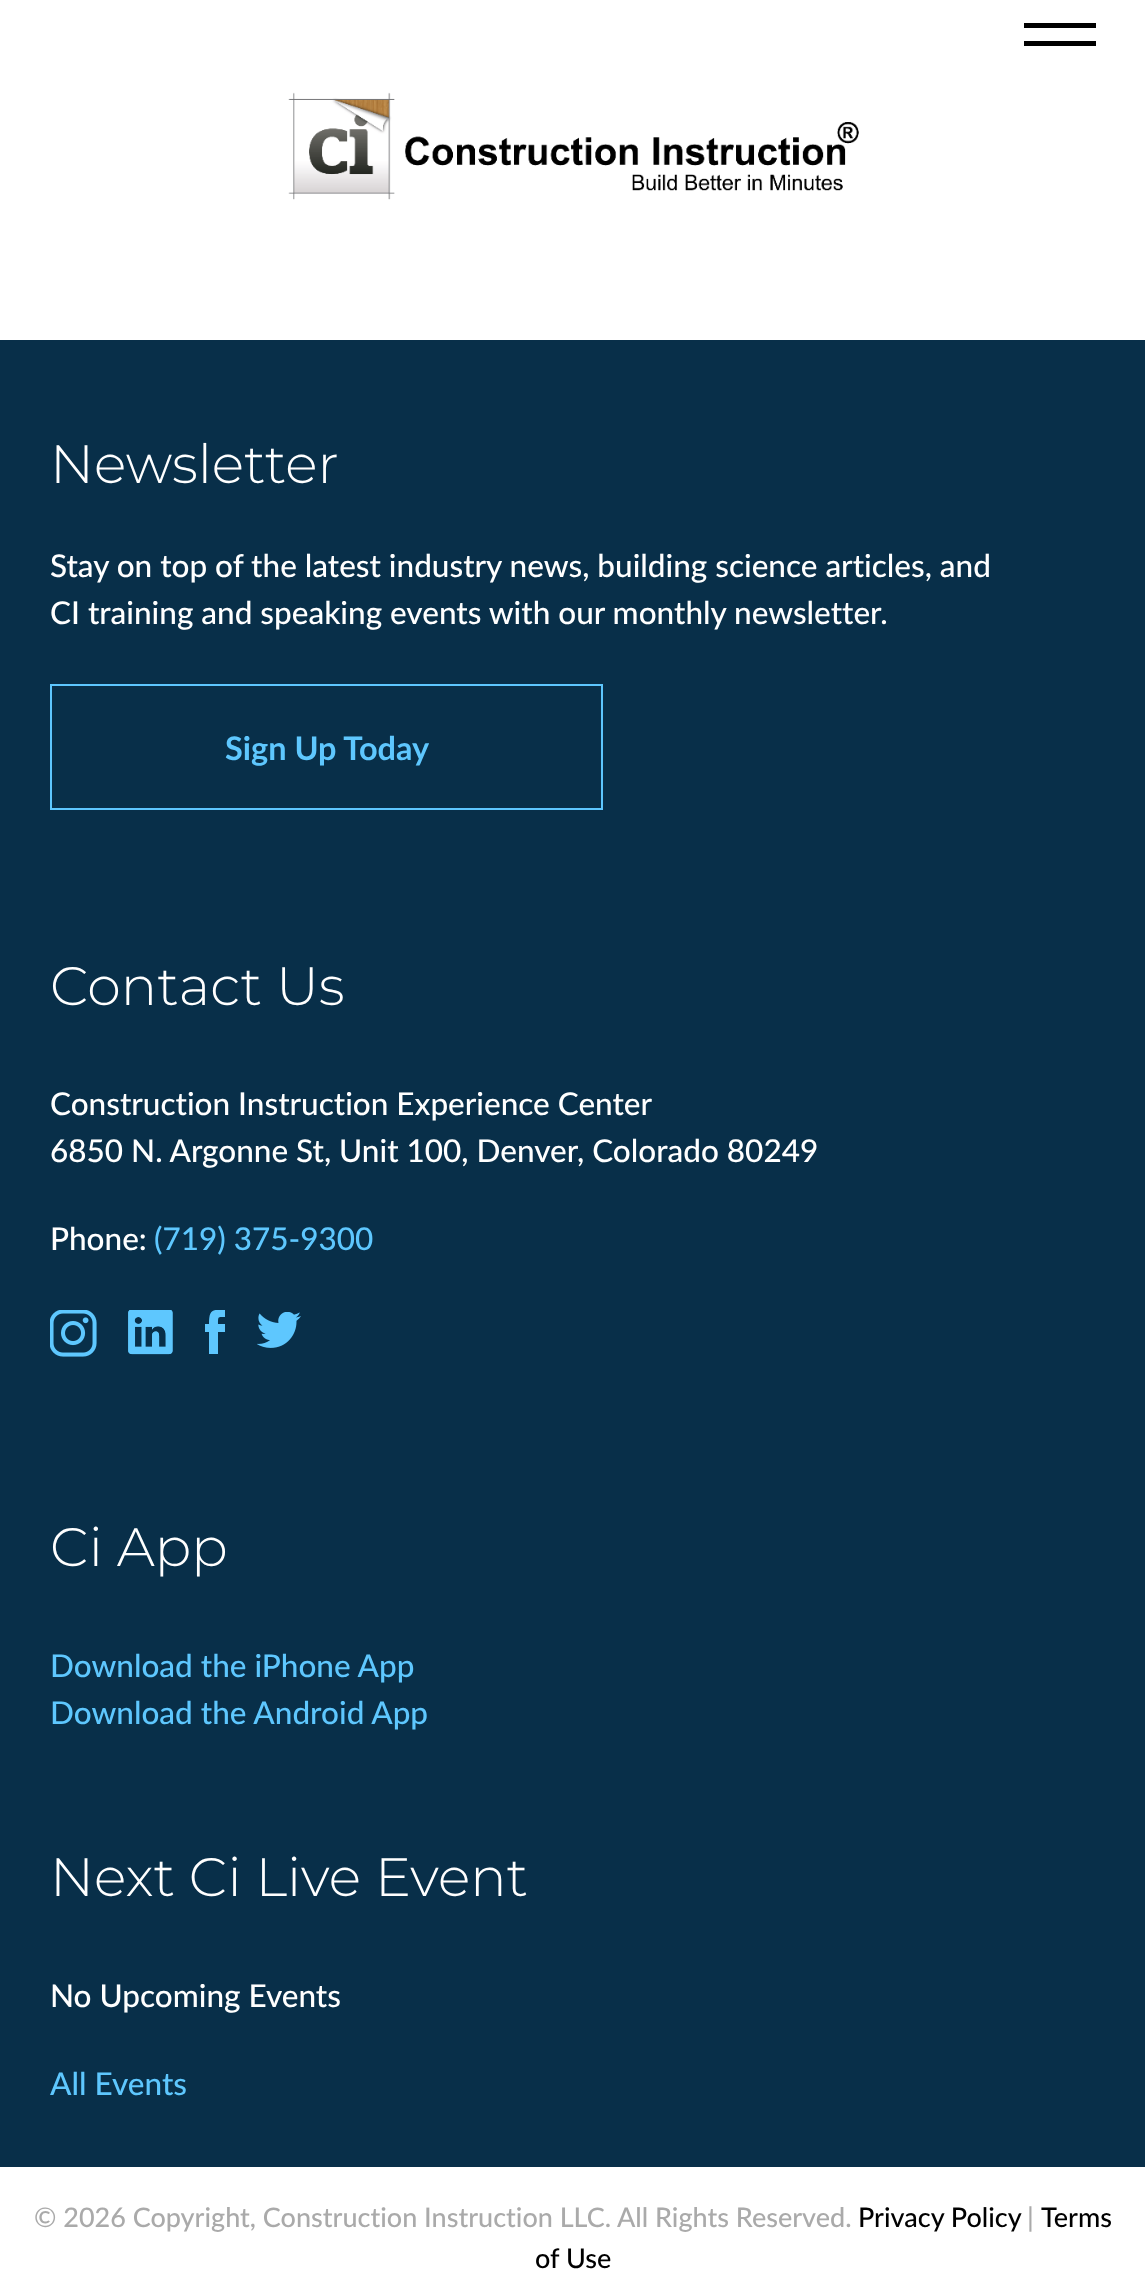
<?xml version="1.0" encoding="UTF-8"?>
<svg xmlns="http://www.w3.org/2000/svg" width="1145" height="2278">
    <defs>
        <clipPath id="clip1"><rect x="205" y="1310" width="20" height="45"/></clipPath>
    </defs>
    <rect width="100%" height="100%" fill="#FFFFFF"/>
    <rect x="1024" y="23" width="72" height="5" fill="#000000"/>
    <rect x="1024" y="41" width="72" height="5" fill="#000000"/>
    <image x="288" y="92" width="571" height="108" href="img_01.png"/>
    <rect x="0" y="340" width="1145" height="1827" fill="#082F49"/>
    <text x="50" y="483" font-family="Montserrat" font-size="54" font-weight="300" fill="#FFFFFF">Newsletter</text>
    <text font-family="Lato" font-size="31.5" font-weight="500" fill="#FFFFFF">
        <tspan x="50" y="577">Stay on top of the latest industry news, building science articles, and</tspan>
        <tspan x="50" y="624">CI training and speaking events with our monthly newsletter.</tspan>
    </text>
    <rect x="51" y="685" width="551" height="124" fill="none" stroke="#5EC7FE" stroke-width="2"/>
    <text x="225" y="760" font-family="Lato" font-size="32.5" font-weight="700" fill="#5EC7FE">Sign Up Today</text>
    <text x="50" y="1005" font-family="Montserrat" font-size="54" font-weight="300" fill="#FFFFFF">Contact Us</text>
    <text font-family="Lato" font-size="31.5" font-weight="500" fill="#FFFFFF">
        <tspan x="50" y="1115">Construction Instruction Experience Center</tspan>
        <tspan x="50" y="1162">6850 N. Argonne St, Unit 100, Denver, Colorado 80249</tspan>
    </text>
    <text x="50" y="1250" font-family="Lato" font-size="31.5" font-weight="500" fill="#FFFFFF">Phone:</text>
    <text x="154" y="1250" font-family="Lato" font-size="31.5" font-weight="500" fill="#5EC7FE">(719) 375-9300</text>
    <image x="50" y="1310" width="47" height="47" href="img_02.png"/>
    <image x="128" y="1310" width="45" height="45" href="img_03.png"/>
    <g clip-path="url(#clip1)">
        <path d="M 225 1332 H 218 V 1354 H 209 V 1332 H 205 V 1324 H 209 C 209 1310 212 1309 225 1310 V 1317 C 218 1317 218 1316 218 1324 H 225 Z" fill="#5EC7FE"/>
    </g>
    <image x="257" y="1312" width="44" height="36" href="img_04.png"/>
    <text x="50" y="1566" font-family="Montserrat" font-size="54" font-weight="300" fill="#FFFFFF">Ci App</text>
    <text font-family="Lato" font-size="31.5" font-weight="500" fill="#5EC7FE">
        <tspan x="50" y="1677">Download the iPhone App</tspan>
        <tspan x="50" y="1724">Download the Android App</tspan>
    </text>
    <text x="50" y="1896" font-family="Montserrat" font-size="54" font-weight="300" fill="#FFFFFF">Next Ci Live Event</text>
    <text x="50" y="2007" font-family="Lato" font-size="31.5" font-weight="500" fill="#FFFFFF">No Upcoming Events</text>
    <text x="50" y="2095" font-family="Lato" font-size="31.5" font-weight="500" fill="#5EC7FE">All Events</text>
    <text x="34" y="2227" font-family="Lato" font-size="27" font-weight="500" fill="#AAAAAA">© 2026 Copyright, Construction Instruction LLC. All Rights Reserved.</text>
    <text x="858" y="2227" font-family="Lato" font-size="27" font-weight="500" fill="#000000">Privacy Policy</text>
    <text x="1027" y="2227" font-family="Lato" font-size="27" font-weight="500" fill="#AAAAAA">|</text>
    <text x="1041" y="2227" font-family="Lato" font-size="27" font-weight="500" fill="#000000">Terms</text>
    <text x="535" y="2268" font-family="Lato" font-size="27" font-weight="500" fill="#000000">of Use</text>
</svg>
